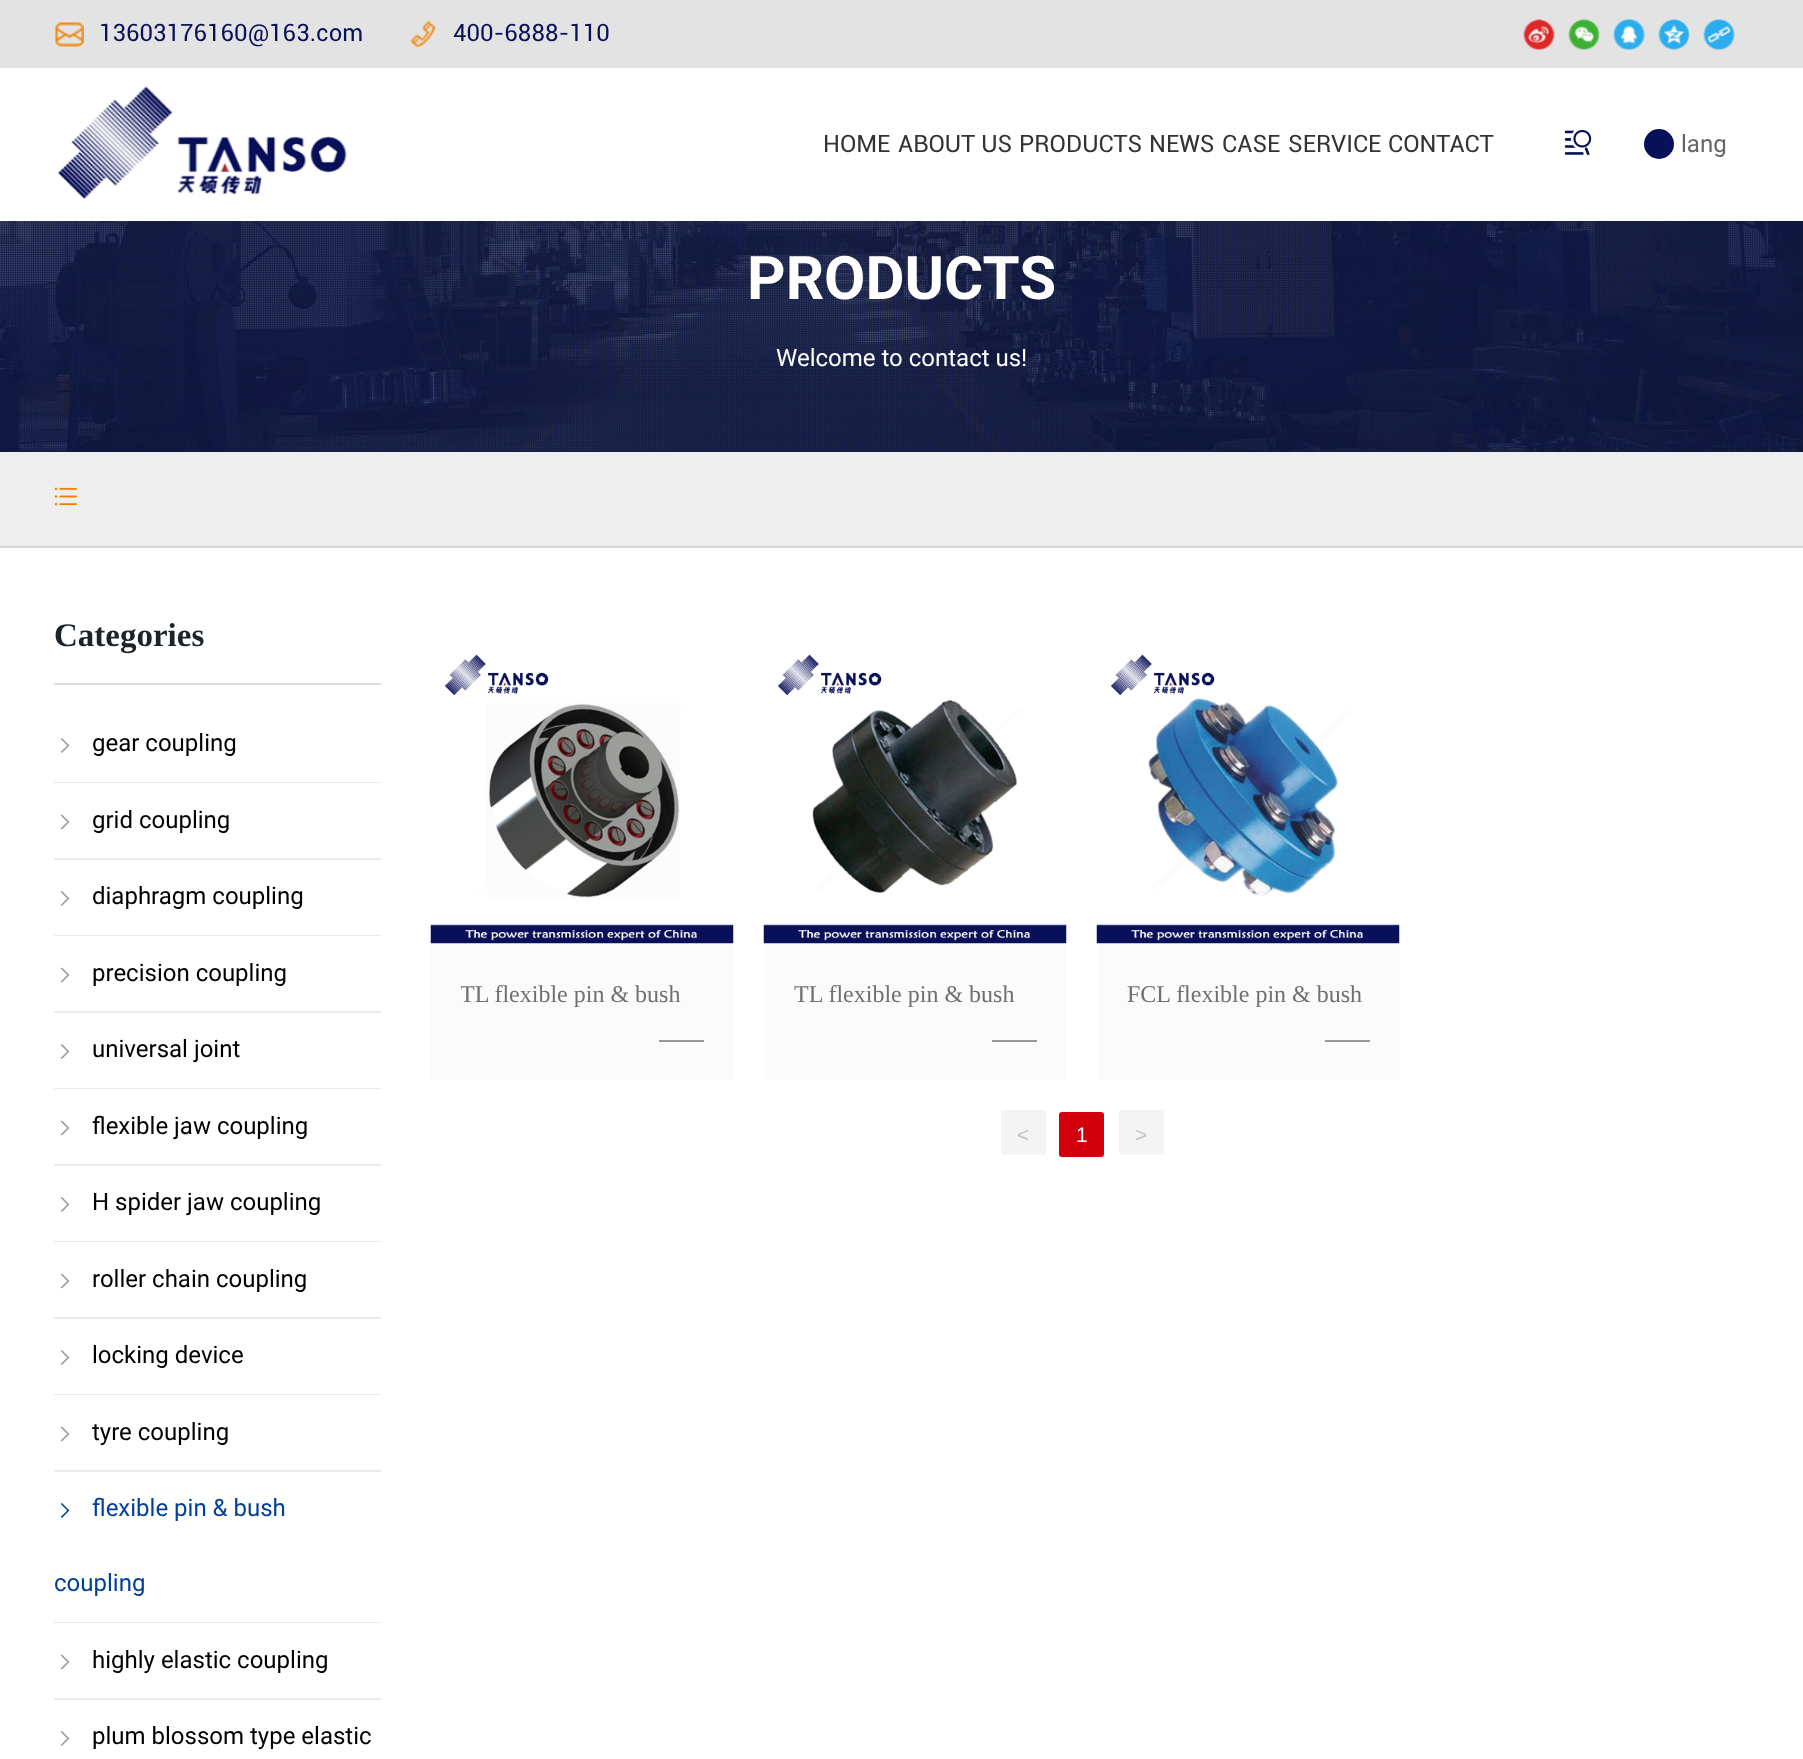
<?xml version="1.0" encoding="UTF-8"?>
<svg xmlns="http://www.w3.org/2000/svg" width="1803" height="1759">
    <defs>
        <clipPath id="clip1"><rect x="461" y="981" width="243" height="27"/></clipPath>
    </defs>
    <rect width="100%" height="100%" fill="#FFFFFF"/>
    <rect x="0" y="0" width="1803" height="68" fill="#E3E3E3"/>
    <image x="55" y="22" width="29" height="25" href="img_01.png"/>
    <text x="99" y="41" font-family="'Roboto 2'" font-size="24" fill="#08105A">13603176160@163.com</text>
    <image x="410" y="20" width="26" height="27" href="img_02.png"/>
    <text x="453" y="41" font-family="'Roboto 2'" font-size="24" fill="#08105A">400-6888-110</text>
    <image x="1523" y="19" width="32" height="31" href="img_03.png"/>
    <image x="1568" y="19" width="32" height="31" href="img_04.png"/>
    <image x="1613" y="19" width="32" height="31" href="img_05.png"/>
    <image x="1658" y="19" width="32" height="31" href="img_06.png"/>
    <image x="1703" y="19" width="32" height="31" href="img_07.png"/>
    <image x="57" y="86" width="290" height="113" href="img_08.png"/>
    <text x="823" y="152" font-family="'Roboto 2'" font-size="24" fill="#333333">HOME</text>
    <text x="898" y="152" font-family="'Roboto 2'" font-size="24" fill="#333333">ABOUT US</text>
    <text x="1019" y="152" font-family="'Roboto 2'" font-size="24" fill="#333333">PRODUCTS</text>
    <text x="1149" y="152" font-family="'Roboto 2'" font-size="24" fill="#333333">NEWS</text>
    <text x="1222" y="152" font-family="'Roboto 2'" font-size="24" fill="#333333">CASE</text>
    <text x="1288" y="152" font-family="'Roboto 2'" font-size="24" fill="#333333">SERVICE</text>
    <text x="1388" y="152" font-family="'Roboto 2'" font-size="24" fill="#333333">CONTACT</text>
    <image x="1564" y="129" width="28" height="26" href="img_09.png"/>
    <circle cx="1659" cy="144" r="15" fill="#08105A"/>
    <text x="1681" y="152" font-family="Roboto" font-size="24" fill="#666666">lang</text>
    <rect x="0" y="221" width="1803" height="231" fill="#1B242B"/>
    <image x="0" y="221" width="1803" height="231" href="img_10.png"/>
    <text x="747" y="299" font-family="Roboto" font-size="60" font-weight="700" fill="#FFFFFF">PRODUCTS</text>
    <text x="776" y="366" font-family="Roboto" font-size="24" fill="#FFFFFF">Welcome to contact us!</text>
    <rect x="0" y="452" width="1803" height="94" fill="#EEEEEE"/>
    <rect x="0" y="546" width="1803" height="2" fill="#D6D6D6"/>
    <image x="54" y="487" width="23" height="19" href="img_11.png"/>
    <text x="54" y="646" font-family="Liberation Serif" font-size="33" font-weight="700" fill="#1B242B">Categories</text>
    <rect x="54" y="683" width="327" height="2" fill="#DDDDDD"/>
    <rect x="54" y="782" width="327" height="1" fill="#EBEBEB"/>
    <image x="60" y="738" width="10" height="15" href="img_12.png"/>
    <text x="92" y="751" font-family="Roboto" font-size="24" fill="#000000">gear coupling</text>
    <rect x="54" y="858" width="327" height="2" fill="#EBEBEB"/>
    <image x="60" y="814" width="10" height="16" href="img_13.png"/>
    <text x="92" y="828" font-family="Roboto" font-size="24" fill="#000000">grid coupling</text>
    <rect x="54" y="935" width="327" height="1" fill="#EBEBEB"/>
    <image x="60" y="891" width="10" height="15" href="img_12.png"/>
    <text x="92" y="904" font-family="Roboto" font-size="24" fill="#000000">diaphragm coupling</text>
    <rect x="54" y="1011" width="327" height="2" fill="#EBEBEB"/>
    <image x="60" y="967" width="10" height="16" href="img_13.png"/>
    <text x="92" y="981" font-family="Roboto" font-size="24" fill="#000000">precision coupling</text>
    <rect x="54" y="1088" width="327" height="1" fill="#EBEBEB"/>
    <image x="60" y="1044" width="10" height="15" href="img_12.png"/>
    <text x="92" y="1057" font-family="Roboto" font-size="24" fill="#000000">universal joint</text>
    <rect x="54" y="1164" width="327" height="2" fill="#EBEBEB"/>
    <image x="60" y="1120" width="10" height="16" href="img_13.png"/>
    <text x="92" y="1134" font-family="Roboto" font-size="24" fill="#000000">flexible jaw coupling</text>
    <rect x="54" y="1241" width="327" height="1" fill="#EBEBEB"/>
    <image x="60" y="1197" width="10" height="15" href="img_12.png"/>
    <text x="92" y="1210" font-family="Roboto" font-size="24" fill="#000000">H spider jaw coupling</text>
    <rect x="54" y="1317" width="327" height="2" fill="#EBEBEB"/>
    <image x="60" y="1273" width="10" height="16" href="img_13.png"/>
    <text x="92" y="1287" font-family="Roboto" font-size="24" fill="#000000">roller chain coupling</text>
    <rect x="54" y="1394" width="327" height="1" fill="#EBEBEB"/>
    <image x="60" y="1350" width="10" height="15" href="img_12.png"/>
    <text x="92" y="1363" font-family="Roboto" font-size="24" fill="#000000">locking device</text>
    <rect x="54" y="1470" width="327" height="2" fill="#EBEBEB"/>
    <image x="60" y="1426" width="10" height="16" href="img_13.png"/>
    <text x="92" y="1440" font-family="Roboto" font-size="24" fill="#000000">tyre coupling</text>
    <rect x="54" y="1622" width="327" height="1" fill="#EBEBEB"/>
    <image x="60" y="1503" width="10" height="15" href="img_14.png"/>
    <text x="92" y="1516" font-family="Roboto" font-size="24" fill="#004099">flexible pin &amp; bush</text>
    <text x="54" y="1591" font-family="Roboto" font-size="24" fill="#004099">coupling</text>
    <rect x="54" y="1698" width="327" height="2" fill="#EBEBEB"/>
    <image x="60" y="1654" width="10" height="16" href="img_13.png"/>
    <text x="92" y="1668" font-family="Roboto" font-size="24" fill="#000000">highly elastic coupling</text>
    <image x="60" y="1731" width="10" height="15" href="img_12.png"/>
    <text x="92" y="1744" font-family="Roboto" font-size="24" fill="#000000">plum blossom type elastic</text>
    <image x="430" y="654" width="304" height="290" href="img_15.png"/>
    <rect x="431" y="944" width="303" height="136" fill="#FBFBFB"/>
    <g clip-path="url(#clip1)">
        <text x="460" y="1002" font-family="Liberation Serif" font-size="24" fill="#707070">TL flexible pin &amp; bush</text>
    </g>
    <rect x="659" y="1040" width="45" height="2" fill="#999999"/>
    <image x="763" y="654" width="304" height="290" href="img_16.png"/>
    <rect x="764" y="944" width="303" height="136" fill="#FBFBFB"/>
    <text x="794" y="1002" font-family="Liberation Serif" font-size="24" fill="#707070">TL flexible pin &amp; bush</text>
    <rect x="992" y="1040" width="45" height="2" fill="#999999"/>
    <image x="1096" y="654" width="304" height="290" href="img_17.png"/>
    <rect x="1097" y="944" width="303" height="136" fill="#FBFBFB"/>
    <text x="1127" y="1002" font-family="Liberation Serif" font-size="24" fill="#707070">FCL flexible pin &amp; bush</text>
    <rect x="1325" y="1040" width="45" height="2" fill="#999999"/>
    <rect x="1002" y="1111" width="43" height="43" rx="2" fill="#F4F4F5" stroke="#F4F4F5" stroke-width="2"/>
    <text x="1017" y="1142" font-family="Liberation Sans" font-size="21" fill="#C0C4CC">&lt;</text>
    <rect x="1059" y="1112" width="45" height="45" rx="3" fill="#D1000A"/>
    <text x="1076" y="1142" font-family="Liberation Sans" font-size="21" fill="#FFFFFF">1</text>
    <rect x="1120" y="1111" width="43" height="43" rx="2" fill="#F4F4F5" stroke="#F4F4F5" stroke-width="2"/>
    <text x="1135" y="1142" font-family="Liberation Sans" font-size="21" fill="#C0C4CC">&gt;</text>
</svg>
